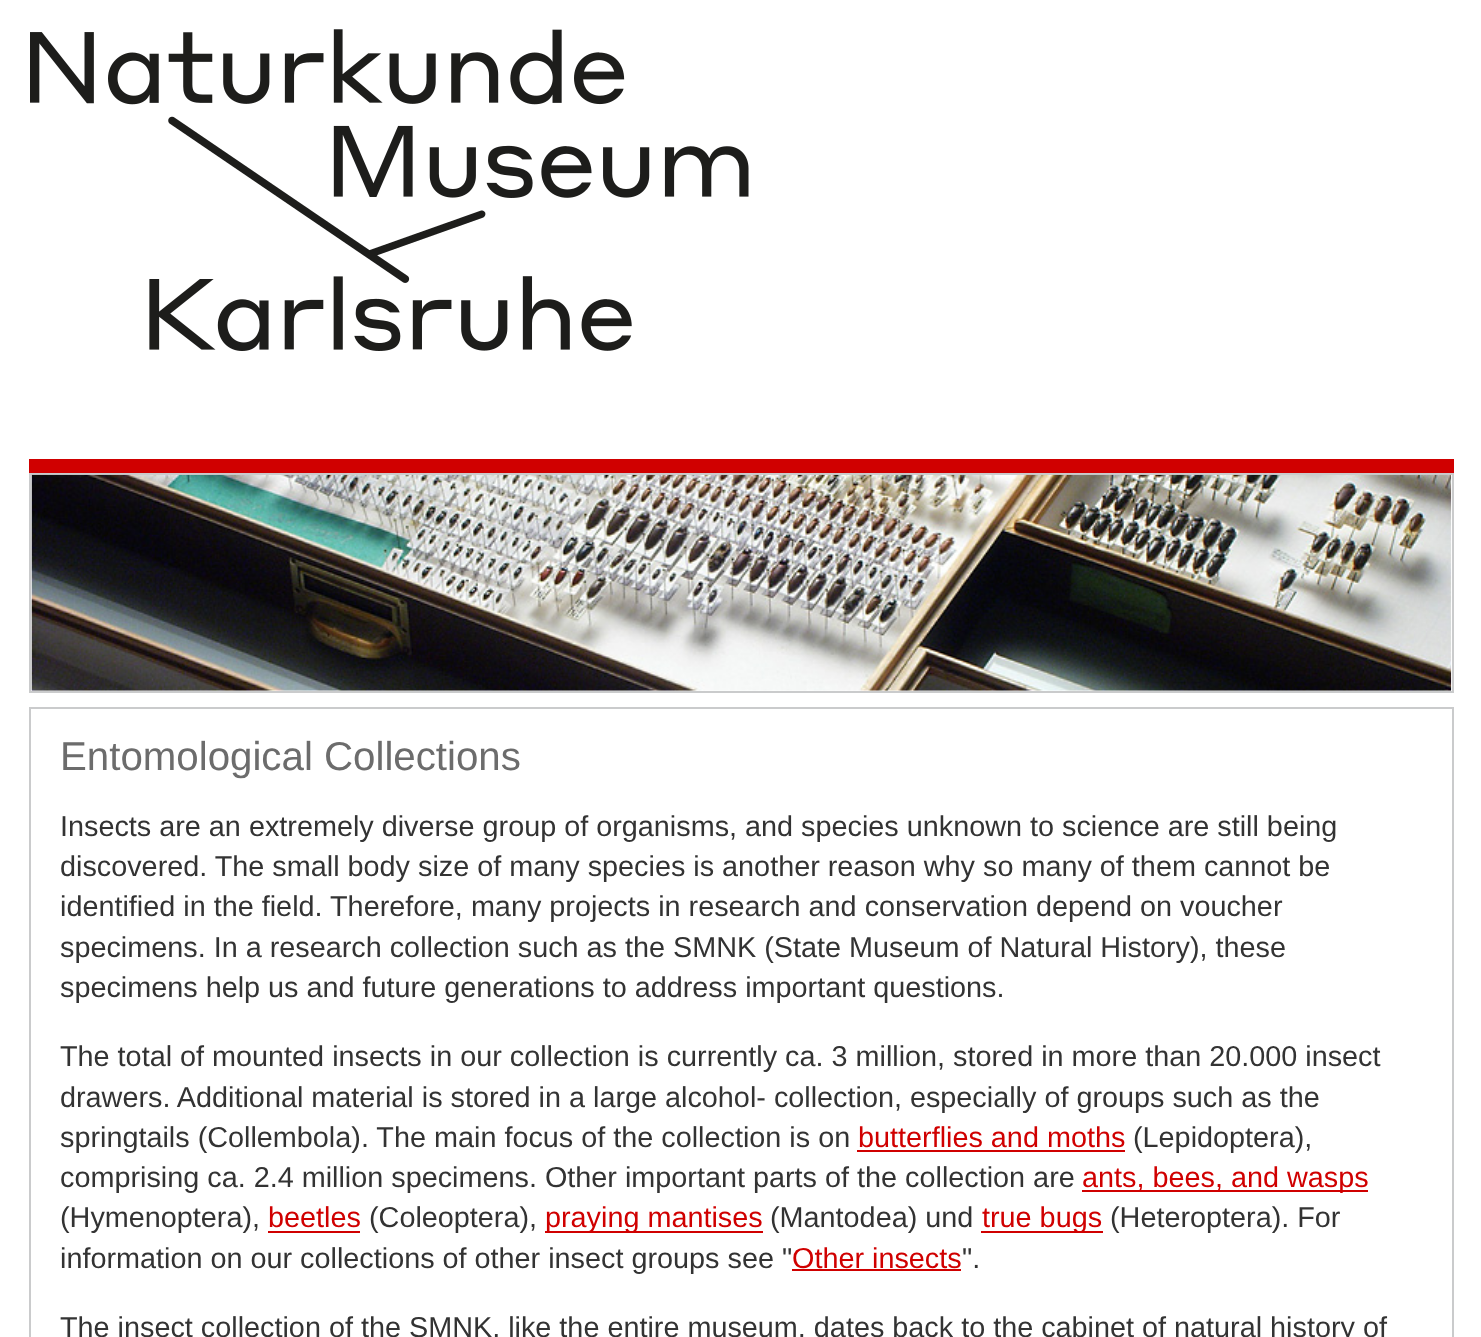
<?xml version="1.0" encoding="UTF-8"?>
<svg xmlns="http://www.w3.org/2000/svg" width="1481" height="1337">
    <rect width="100%" height="100%" fill="#FFFFFF"/>
    <rect x="29" y="459" width="1425" height="14" fill="#D00000"/>
    <image x="30" y="29" width="719" height="322" href="img_01.png"/>
    <rect x="30" y="474" width="1423" height="218" fill="none" stroke="#CACBCC" stroke-width="2"/>
    <image x="31" y="474" width="1421" height="217" href="img_02.png"/>
    <rect x="30" y="708" width="1423" height="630" fill="none" stroke="#CACBCC" stroke-width="2"/>
    <text x="60" y="770" font-family="Liberation Sans" font-size="40.25" fill="#6C6C6C">Entomological Collections</text>
    <text font-family="Liberation Sans" font-size="28.8" fill="#333333">
        <tspan x="60" y="836">Insects are an extremely diverse group of organisms, and species unknown to science are still being</tspan>
        <tspan x="60" y="876">discovered. The small body size of many species is another reason why so many of them cannot be</tspan>
        <tspan x="60" y="916">identified in the field. Therefore, many projects in research and conservation depend on voucher</tspan>
        <tspan x="60" y="957">specimens. In a research collection such as the SMNK (State Museum of Natural History), these</tspan>
        <tspan x="60" y="997">specimens help us and future generations to address important questions.</tspan>
    </text>
    <text font-family="Liberation Sans" font-size="28.8" fill="#333333">
        <tspan x="60" y="1066">The total of mounted insects in our collection is currently ca. 3 million, stored in more than 20.000 insect</tspan>
        <tspan x="60" y="1107">drawers. Additional material is stored in a large alcohol- collection, especially of groups such as the</tspan>
        <tspan x="60" y="1147">springtails (Collembola). The main focus of the collection is on</tspan>
    </text>
    <text x="858" y="1147" font-family="Liberation Sans" font-size="28.8" fill="#D00000">butterflies and moths</text>
    <rect x="857" y="1150" width="268" height="2" fill="#D00000"/>
    <text x="1133" y="1147" font-family="Liberation Sans" font-size="28.8" fill="#333333">(Lepidoptera),</text>
    <text x="60" y="1187" font-family="Liberation Sans" font-size="28.8" fill="#333333">comprising ca. 2.4 million specimens. Other important parts of the collection are</text>
    <rect x="1082" y="1190" width="286" height="2" fill="#D00000"/>
    <text x="1082" y="1187" font-family="Liberation Sans" font-size="28.8" fill="#D00000">ants, bees, and wasps</text>
    <text x="60" y="1227" font-family="Liberation Sans" font-size="28.8" fill="#333333">(Hymenoptera),</text>
    <text x="268" y="1227" font-family="Liberation Sans" font-size="28.8" fill="#D00000">beetles</text>
    <rect x="268" y="1231" width="92" height="2" fill="#D00000"/>
    <text x="369" y="1227" font-family="Liberation Sans" font-size="28.8" fill="#333333">(Coleoptera),</text>
    <rect x="545" y="1231" width="218" height="2" fill="#D00000"/>
    <text x="545" y="1227" font-family="Liberation Sans" font-size="28.8" fill="#D00000">praying mantises</text>
    <text x="770" y="1227" font-family="Liberation Sans" font-size="28.8" fill="#333333">(Mantodea) und</text>
    <rect x="981" y="1231" width="122" height="2" fill="#D00000"/>
    <text x="982" y="1227" font-family="Liberation Sans" font-size="28.8" fill="#D00000">true bugs</text>
    <text x="1110" y="1227" font-family="Liberation Sans" font-size="28.8" fill="#333333">(Heteroptera). For</text>
    <text x="60" y="1268" font-family="Liberation Sans" font-size="28.8" fill="#333333">information on our collections of other insect groups see "</text>
    <text x="792" y="1268" font-family="Liberation Sans" font-size="28.8" fill="#D00000">Other insects</text>
    <rect x="792" y="1269" width="169" height="2" fill="#D00000"/>
    <text x="962" y="1268" font-family="Liberation Sans" font-size="28.8" fill="#333333">".</text>
    <text x="60" y="1337" font-family="Liberation Sans" font-size="28.8" fill="#333333">The insect collection of the SMNK, like the entire museum, dates back to the cabinet of natural history of</text>
</svg>
